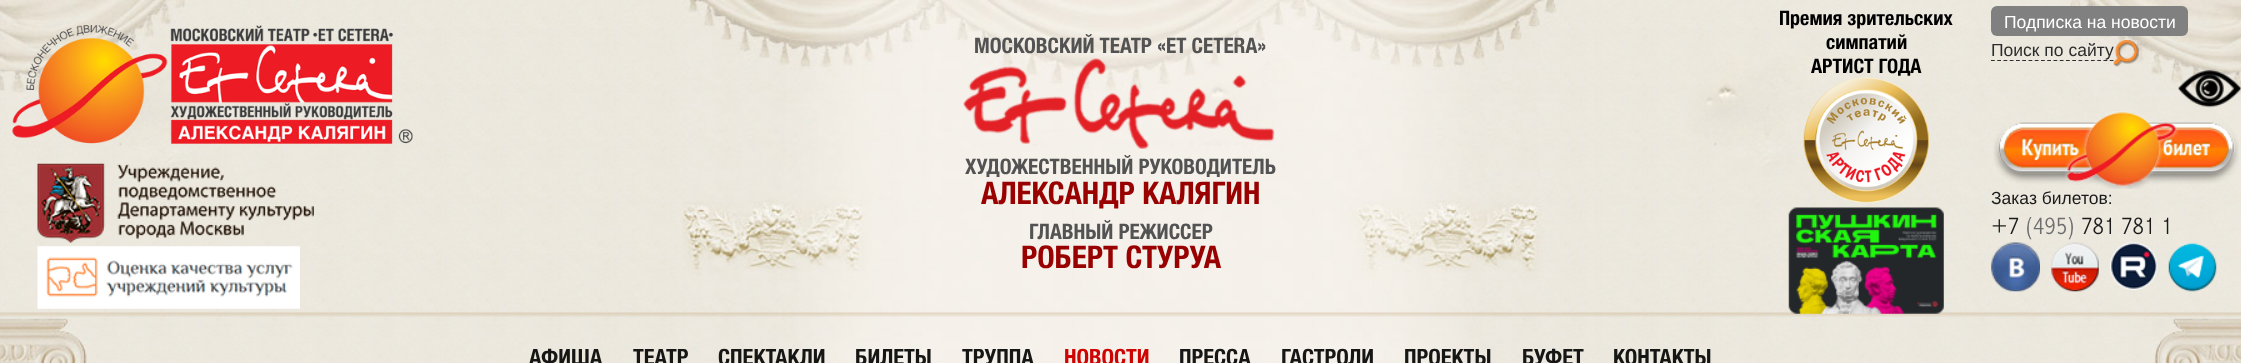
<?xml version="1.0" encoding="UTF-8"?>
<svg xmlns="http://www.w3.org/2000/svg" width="2241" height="363">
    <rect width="100%" height="100%" fill="#FFFFFF"/>
    <image x="0" y="0" width="2241" height="363" href="img_01.png"/>
    <image x="682" y="0" width="877" height="363" href="img_02.png"/>
    <image x="0" y="0" width="187" height="105" href="img_03.png"/>
    <image x="2070" y="0" width="171" height="96" href="img_04.png"/>
    <image x="12" y="25" width="401" height="119" href="img_05.png"/>
    <image x="37" y="163" width="277" height="80" href="img_06.png"/>
    <image x="37" y="246" width="263" height="63" href="img_07.png"/>
    <text x="974" y="53" font-family="Helvetica Neue" font-size="21.25" font-weight="700" fill="#535353">МОСКОВСКИЙ ТЕАТР «ET CETERA»</text>
    <image x="963" y="58" width="312" height="91" href="img_08.png"/>
    <text x="965" y="174" font-family="Helvetica Neue" font-size="21.25" font-weight="700" fill="#535353">ХУДОЖЕСТВЕННЫЙ РУКОВОДИТЕЛЬ</text>
    <text x="981" y="204" font-family="Helvetica Neue" font-size="31.25" font-weight="700" fill="#990101">АЛЕКСАНДР КАЛЯГИН</text>
    <text x="1029" y="239" font-family="Helvetica Neue" font-size="21.25" font-weight="700" fill="#535353">ГЛАВНЫЙ РЕЖИССЕР</text>
    <text x="1021" y="268" font-family="Helvetica Neue" font-size="31.25" font-weight="700" fill="#990101">РОБЕРТ СТУРУА</text>
    <text x="1779" y="25" font-family="Helvetica Neue" font-size="20" font-weight="700" fill="#000000">Премия зрительских</text>
    <text x="1826" y="49" font-family="Helvetica Neue" font-size="20" font-weight="700" fill="#000000">симпатий</text>
    <text x="1811" y="73" font-family="Helvetica Neue" font-size="20" font-weight="700" fill="#000000">АРТИСТ ГОДА</text>
    <image x="1803" y="77" width="126" height="126" href="img_09.png"/>
    <image x="0" y="312" width="2241" height="5" href="img_18.png"/>
    <image x="1788" y="207" width="156" height="107" href="img_10.png"/>
    <rect x="1991" y="6" width="197" height="30" rx="6" fill="#808080"/>
    <text x="2004" y="28" font-family="Liberation Sans" font-size="17.5" fill="#FFFFFF">Подписка на новости</text>
    <path d="M 1991 60.5 H 2114" fill="none" stroke="#2D2D2D" stroke-width="1.2" stroke-dasharray="3.75 2.5"/>
    <text x="1991" y="56" font-family="Liberation Sans" font-size="17.5" fill="#2D2D2D">Поиск по сайту</text>
    <image x="2113" y="40" width="26" height="27" href="img_11.png"/>
    <image x="2177" y="69" width="64" height="39" href="img_12.png"/>
    <image x="1993" y="111" width="246" height="78" href="img_13.png"/>
    <text x="1991" y="204" font-family="Liberation Sans" font-size="17.5" fill="#1B1B1B">Заказ билетов:</text>
    <text x="1991" y="234" font-family="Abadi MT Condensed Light" font-size="25" font-weight="300" fill="#1B1B1B">+7</text>
    <text x="2025" y="234" font-family="Abadi MT Condensed Light" font-size="25" font-weight="300" fill="#6E6E6E">(495)</text>
    <text x="2081" y="234" font-family="Abadi MT Condensed Light" font-size="25" font-weight="300" fill="#1B1B1B">781 781 1</text>
    <image x="1991" y="242" width="49" height="50" href="img_14.png"/>
    <image x="2051" y="242" width="48" height="50" href="img_15.png"/>
    <image x="2110" y="242" width="48" height="48" href="img_16.png"/>
    <image x="2168" y="243" width="49" height="49" href="img_17.png"/>
    <image x="8" y="318" width="73" height="1" href="img_19.png"/>
    <image x="0" y="318" width="89" height="45" href="img_20.png"/>
    <image x="2187" y="318" width="52" height="1" href="img_21.png"/>
    <image x="2152" y="318" width="89" height="45" href="img_22.png"/>
    <text x="529" y="365" font-family="Helvetica Neue" font-size="22.5" font-weight="700" fill="#161615">АФИША</text>
    <text x="633" y="365" font-family="Helvetica Neue" font-size="22.5" font-weight="700" fill="#161615">ТЕАТР</text>
    <text x="718" y="365" font-family="Helvetica Neue" font-size="22.5" font-weight="700" fill="#161615">СПЕКТАКЛИ</text>
    <text x="855" y="365" font-family="Helvetica Neue" font-size="22.5" font-weight="700" fill="#161615">БИЛЕТЫ</text>
    <text x="962" y="365" font-family="Helvetica Neue" font-size="22.5" font-weight="700" fill="#161615">ТРУППА</text>
    <text x="1064" y="365" font-family="Helvetica Neue" font-size="22.5" font-weight="700" fill="#CE0402">НОВОСТИ</text>
    <text x="1179" y="365" font-family="Helvetica Neue" font-size="22.5" font-weight="700" fill="#161615">ПРЕССА</text>
    <text x="1281" y="365" font-family="Helvetica Neue" font-size="22.5" font-weight="700" fill="#161615">ГАСТРОЛИ</text>
    <text x="1404" y="365" font-family="Helvetica Neue" font-size="22.5" font-weight="700" fill="#161615">ПРОЕКТЫ</text>
    <text x="1522" y="365" font-family="Helvetica Neue" font-size="22.5" font-weight="700" fill="#161615">БУФЕТ</text>
    <text x="1613" y="365" font-family="Helvetica Neue" font-size="22.5" font-weight="700" fill="#161615">КОНТАКТЫ</text>
</svg>
